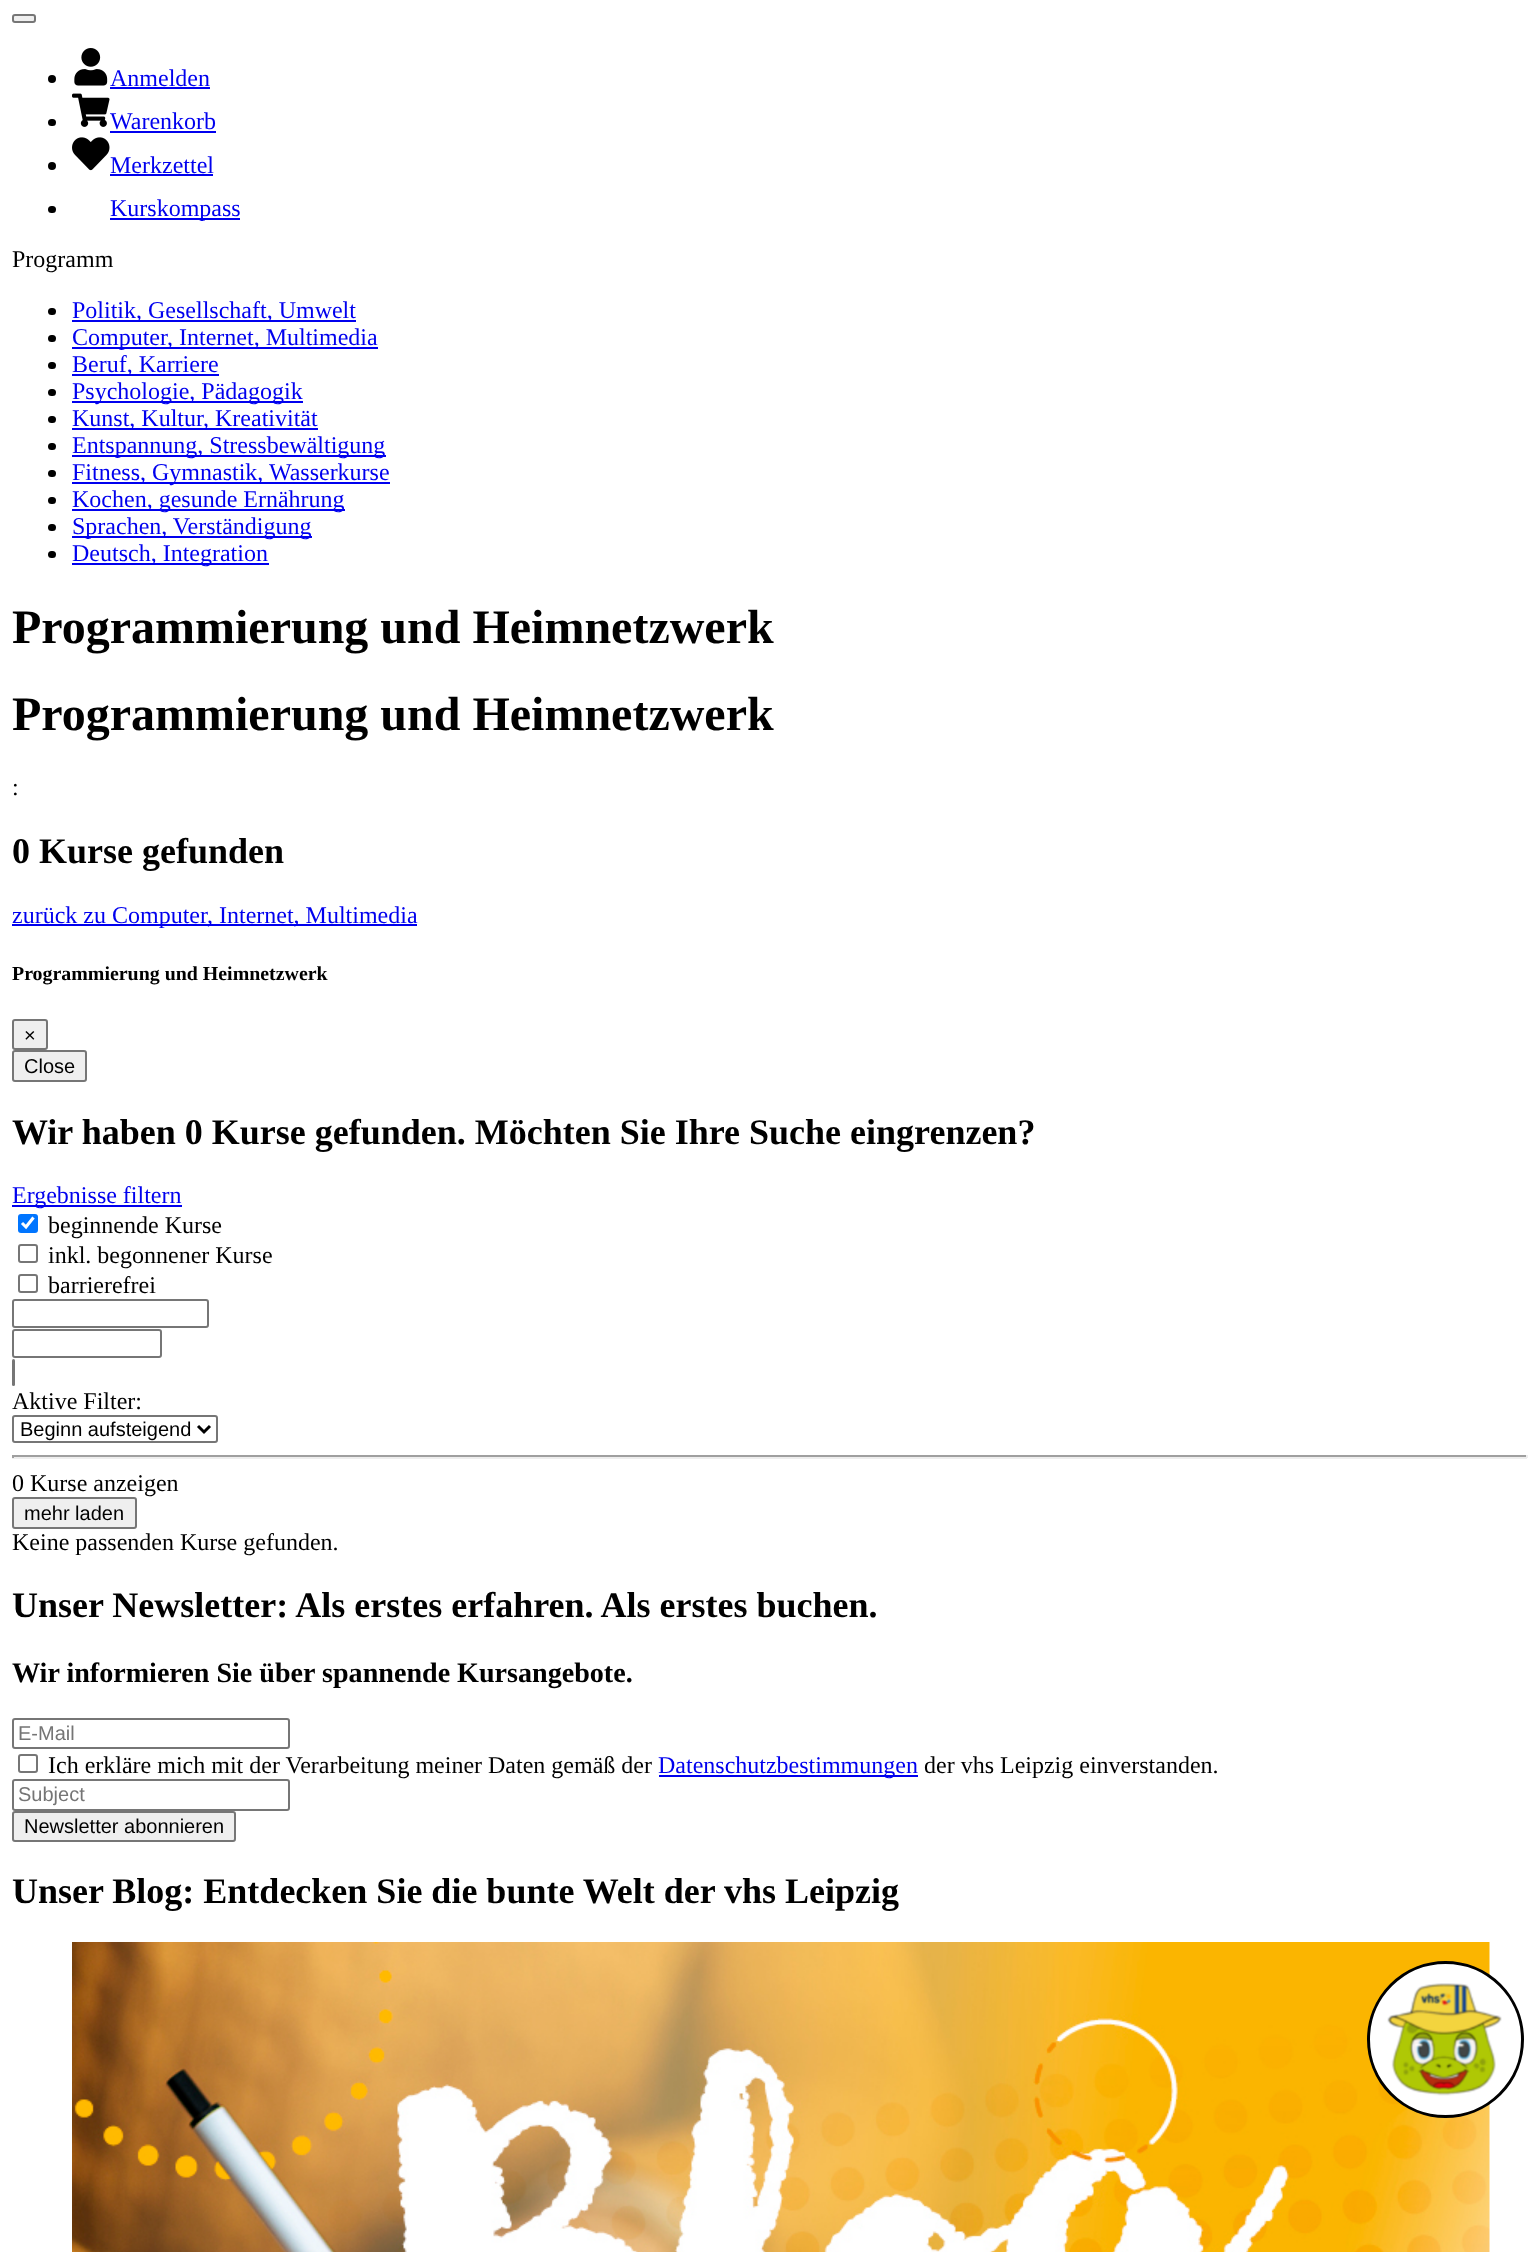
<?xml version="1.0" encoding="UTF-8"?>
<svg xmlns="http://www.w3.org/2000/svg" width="1538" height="2252">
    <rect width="100%" height="100%" fill="#FFFFFF"/>
    <rect x="13" y="15" width="22" height="7" rx="2" fill="#EFEFEF" stroke="#767676" stroke-width="2"/>
    <circle cx="52" cy="79" r="4" fill="#000000"/>
    <image x="74" y="48" width="34" height="38" href="img_01.png"/>
    <text x="110" y="86" font-family="Liberation Serif" font-size="24" fill="#0000EE">Anmelden</text>
    <rect x="110" y="87" width="100" height="2" fill="#0000EE"/>
    <rect x="48" y="119" width="8" height="7" rx="3.5" fill="#000000"/>
    <text x="110" y="129" font-family="Liberation Serif" font-size="24" fill="#0000EE">Warenkorb</text>
    <image x="72" y="93" width="38" height="34" href="img_02.png"/>
    <rect x="110" y="131" width="106" height="2" fill="#0000EE"/>
    <circle cx="52" cy="166" r="4" fill="#000000"/>
    <image x="72" y="137" width="38" height="34" href="img_03.png"/>
    <text x="110" y="173" font-family="Liberation Serif" font-size="24" fill="#0000EE">Merkzettel</text>
    <rect x="110" y="174" width="103" height="2" fill="#0000EE"/>
    <rect x="48" y="206" width="8" height="7" rx="3.5" fill="#000000"/>
    <rect x="110" y="218" width="130" height="2" fill="#0000EE"/>
    <text x="110" y="216" font-family="Liberation Serif" font-size="24" fill="#0000EE">Kurskompass</text>
    <text x="12" y="267" font-family="Liberation Serif" font-size="24" fill="#000000">Programm</text>
    <rect x="48" y="308" width="8" height="7" rx="3.5" fill="#000000"/>
    <rect x="72" y="320" width="284" height="2" fill="#0000EE"/>
    <text x="72" y="318" font-family="Liberation Serif" font-size="24" fill="#0000EE">Politik, Gesellschaft, Umwelt</text>
    <rect x="48" y="335" width="8" height="7" rx="3.5" fill="#000000"/>
    <rect x="72" y="347" width="306" height="2" fill="#0000EE"/>
    <text x="72" y="345" font-family="Liberation Serif" font-size="24" fill="#0000EE">Computer, Internet, Multimedia</text>
    <rect x="48" y="362" width="8" height="7" rx="3.5" fill="#000000"/>
    <rect x="72" y="374" width="147" height="2" fill="#0000EE"/>
    <text x="72" y="372" font-family="Liberation Serif" font-size="24" fill="#0000EE">Beruf, Karriere</text>
    <rect x="48" y="389" width="8" height="7" rx="3.5" fill="#000000"/>
    <rect x="72" y="401" width="231" height="2" fill="#0000EE"/>
    <text x="72" y="399" font-family="Liberation Serif" font-size="24" fill="#0000EE">Psychologie, Pädagogik</text>
    <rect x="48" y="416" width="8" height="7" rx="3.5" fill="#000000"/>
    <rect x="72" y="428" width="246" height="2" fill="#0000EE"/>
    <text x="72" y="426" font-family="Liberation Serif" font-size="24" fill="#0000EE">Kunst, Kultur, Kreativität</text>
    <rect x="48" y="443" width="8" height="7" rx="3.5" fill="#000000"/>
    <rect x="72" y="455" width="314" height="2" fill="#0000EE"/>
    <text x="72" y="453" font-family="Liberation Serif" font-size="24" fill="#0000EE">Entspannung, Stressbewältigung</text>
    <rect x="48" y="470" width="8" height="7" rx="3.5" fill="#000000"/>
    <rect x="72" y="482" width="318" height="2" fill="#0000EE"/>
    <text x="72" y="480" font-family="Liberation Serif" font-size="24" fill="#0000EE">Fitness, Gymnastik, Wasserkurse</text>
    <rect x="48" y="497" width="8" height="7" rx="3.5" fill="#000000"/>
    <rect x="72" y="509" width="273" height="2" fill="#0000EE"/>
    <text x="72" y="507" font-family="Liberation Serif" font-size="24" fill="#0000EE">Kochen, gesunde Ernährung</text>
    <rect x="48" y="524" width="8" height="7" rx="3.5" fill="#000000"/>
    <rect x="72" y="536" width="240" height="2" fill="#0000EE"/>
    <text x="72" y="534" font-family="Liberation Serif" font-size="24" fill="#0000EE">Sprachen, Verständigung</text>
    <rect x="48" y="551" width="8" height="7" rx="3.5" fill="#000000"/>
    <rect x="72" y="563" width="197" height="2" fill="#0000EE"/>
    <text x="72" y="561" font-family="Liberation Serif" font-size="24" fill="#0000EE">Deutsch, Integration</text>
    <text font-family="Liberation Serif" font-size="48" font-weight="700" fill="#000000">
        <tspan x="12" y="643">Programmierung und Heimnetzwerk</tspan>
        <tspan x="12" y="730">Programmierung und Heimnetzwerk</tspan>
    </text>
    <text x="12" y="795" font-family="Liberation Serif" font-size="24" fill="#000000">:</text>
    <text x="12" y="863" font-family="Liberation Serif" font-size="36" font-weight="700" fill="#000000">0 Kurse gefunden</text>
    <rect x="12" y="924" width="405" height="2" fill="#0000EE"/>
    <text x="12" y="923" font-family="Liberation Serif" font-size="24" fill="#0000EE">zurück zu Computer, Internet, Multimedia</text>
    <text x="12" y="980" font-family="Liberation Serif" font-size="19.9" font-weight="700" fill="#000000">Programmierung und Heimnetzwerk</text>
    <rect x="13" y="1020" width="34" height="29" rx="2" fill="#EFEFEF" stroke="#767676" stroke-width="2"/>
    <text x="24" y="1042" font-family="Liberation Sans" font-size="20" fill="#000000">×</text>
    <rect x="13" y="1051" width="73" height="30" rx="2" fill="#EFEFEF" stroke="#767676" stroke-width="2"/>
    <text x="24" y="1073" font-family="Liberation Sans" font-size="20" fill="#000000">Close</text>
    <text x="12" y="1144" font-family="Liberation Serif" font-size="36" font-weight="700" fill="#000000">Wir haben 0 Kurse gefunden. Möchten Sie Ihre Suche eingrenzen?</text>
    <rect x="12" y="1205" width="170" height="2" fill="#0000EE"/>
    <text x="12" y="1203" font-family="Liberation Serif" font-size="24" fill="#0000EE">Ergebnisse filtern</text>
    <rect x="18" y="1214" width="20" height="19" rx="3" fill="#0075FF"/>
    <path d="M 22 1223 L 26 1227 L 33.5 1217.5" fill="none" stroke="#FFFFFF" stroke-width="3.1"/>
    <text x="48" y="1233" font-family="Liberation Serif" font-size="24" fill="#000000">beginnende Kurse</text>
    <rect x="19" y="1245" width="18" height="17" rx="2" fill="none" stroke="#767676" stroke-width="2"/>
    <text x="48" y="1263" font-family="Liberation Serif" font-size="24" fill="#000000">inkl. begonnener Kurse</text>
    <rect x="19" y="1275" width="18" height="17" rx="2" fill="none" stroke="#767676" stroke-width="2"/>
    <text x="48" y="1293" font-family="Liberation Serif" font-size="24" fill="#000000">barrierefrei</text>
    <rect x="13" y="1300" width="195" height="27" rx="2" fill="none" stroke="#767676" stroke-width="2"/>
    <rect x="13" y="1330" width="148" height="27" rx="2" fill="none" stroke="#767676" stroke-width="2"/>
    <rect x="12" y="1359" width="3" height="27" rx="1.5" fill="#767676"/>
    <text x="12" y="1409" font-family="Liberation Serif" font-size="24" fill="#000000">Aktive Filter:</text>
    <rect x="13" y="1416" width="204" height="26" rx="2" fill="none" stroke="#767676" stroke-width="2"/>
    <path d="M 198 1426 L 204 1432 L 210 1426" fill="none" stroke="#000000" stroke-width="3"/>
    <text x="20" y="1436" font-family="Liberation Sans" font-size="20" fill="#000000">Beginn aufsteigend</text>
    <rect x="12" y="1455" width="1515" height="2" fill="#9F9F9F"/>
    <rect x="1526" y="1455" width="2" height="3" fill="#EEEEEE"/>
    <rect x="12" y="1457" width="1515" height="2" fill="#EEEEEE"/>
    <rect x="12" y="1455" width="2" height="3" fill="#9F9F9F"/>
    <text x="12" y="1491" font-family="Liberation Serif" font-size="24" fill="#000000">0 Kurse anzeigen</text>
    <rect x="13" y="1498" width="123" height="30" rx="2" fill="#EFEFEF" stroke="#767676" stroke-width="2"/>
    <text x="24" y="1520" font-family="Liberation Sans" font-size="20" fill="#000000">mehr laden</text>
    <text x="12" y="1550" font-family="Liberation Serif" font-size="24" fill="#000000">Keine passenden Kurse gefunden.</text>
    <text x="12" y="1617" font-family="Liberation Serif" font-size="36" font-weight="700" fill="#000000">Unser Newsletter: Als erstes erfahren. Als erstes buchen.</text>
    <text x="12" y="1682" font-family="Liberation Serif" font-size="28.1" font-weight="700" fill="#000000">Wir informieren Sie über spannende Kursangebote.</text>
    <rect x="13" y="1719" width="276" height="29" rx="2" fill="none" stroke="#767676" stroke-width="2"/>
    <text x="18" y="1740" font-family="Liberation Sans" font-size="20" fill="#757575">E-Mail</text>
    <rect x="19" y="1755" width="18" height="17" rx="2" fill="none" stroke="#767676" stroke-width="2"/>
    <text x="48" y="1773" font-family="Liberation Serif" font-size="24" fill="#000000">Ich erkläre mich mit der Verarbeitung meiner Daten gemäß der</text>
    <rect x="659" y="1775" width="259" height="2" fill="#0000EE"/>
    <text x="658" y="1773" font-family="Liberation Serif" font-size="24" fill="#0000EE">Datenschutzbestimmungen</text>
    <text x="924" y="1773" font-family="Liberation Serif" font-size="24" fill="#000000">der vhs Leipzig einverstanden.</text>
    <rect x="13" y="1780" width="276" height="30" rx="2" fill="none" stroke="#767676" stroke-width="2"/>
    <text x="18" y="1801" font-family="Liberation Sans" font-size="20" fill="#757575">Subject</text>
    <rect x="13" y="1812" width="222" height="29" rx="2" fill="#EFEFEF" stroke="#767676" stroke-width="2"/>
    <text x="24" y="1833" font-family="Liberation Sans" font-size="20" fill="#000000">Newsletter abonnieren</text>
    <text x="12" y="1903" font-family="Liberation Serif" font-size="36" font-weight="700" fill="#000000">Unser Blog: Entdecken Sie die bunte Welt der vhs Leipzig</text>
    <image x="72" y="1942" width="1418" height="310" href="img_04.png"/>
    <circle cx="1445.5" cy="2039.5" r="77" fill="#FFFFFF" stroke="#000000" stroke-width="3"/>
    <image x="1387" y="1983" width="115" height="113" href="img_05.png"/>
</svg>
